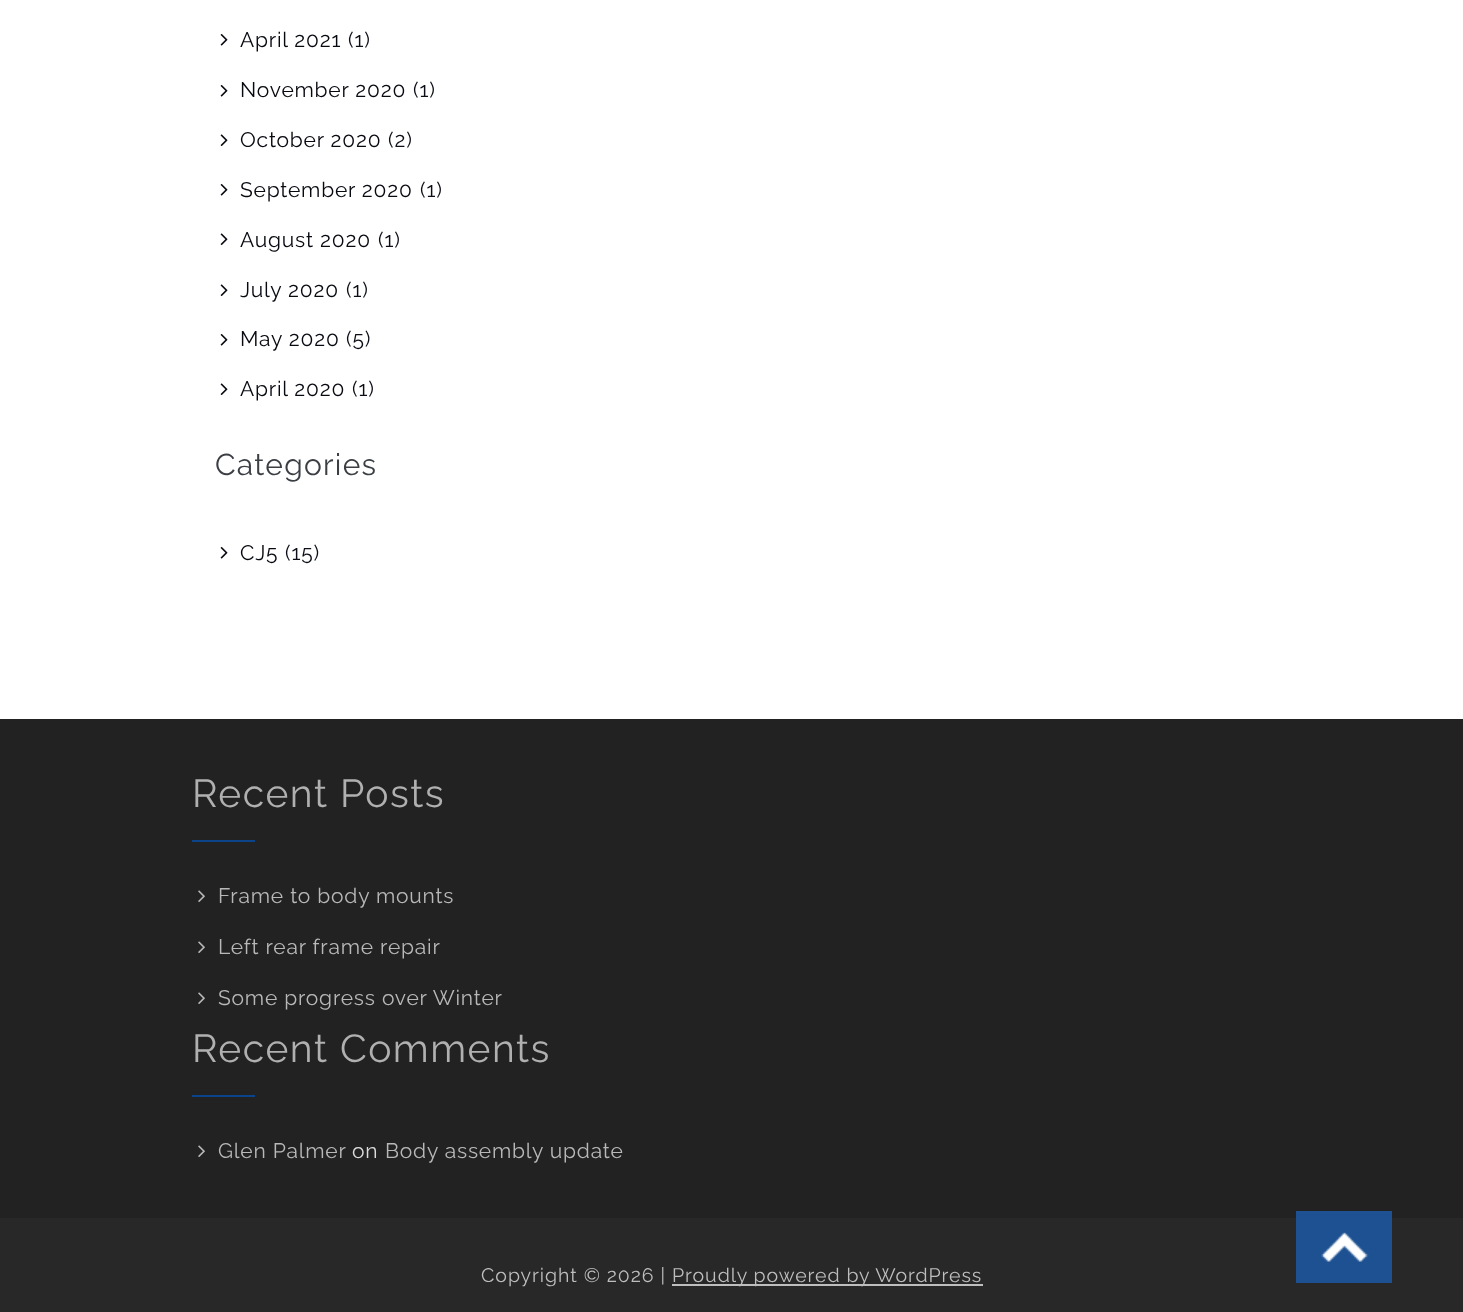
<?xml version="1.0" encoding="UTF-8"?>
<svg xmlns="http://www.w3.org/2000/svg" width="1463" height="1312">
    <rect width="100%" height="100%" fill="#FFFFFF"/>
    <image x="220" y="34" width="8" height="12" href="img_01.png"/>
    <text x="240" y="47" font-family="Raleway" font-size="21" letter-spacing="0.8" fill="#070910">April 2021</text>
    <text x="348" y="47" font-family="Raleway" font-size="21" letter-spacing="0.8" fill="#0C0E17">(1)</text>
    <image x="220" y="85" width="8" height="12" href="img_01.png"/>
    <text x="240" y="97" font-family="Raleway" font-size="21" letter-spacing="0.8" fill="#070910">November 2020</text>
    <text x="413" y="97" font-family="Raleway" font-size="21" letter-spacing="0.8" fill="#0C0E17">(1)</text>
    <image x="220" y="134" width="8" height="12" href="img_02.png"/>
    <text x="240" y="147" font-family="Raleway" font-size="21" letter-spacing="0.8" fill="#070910">October 2020</text>
    <text x="388" y="147" font-family="Raleway" font-size="21" letter-spacing="0.8" fill="#0C0E17">(2)</text>
    <image x="220" y="184" width="8" height="12" href="img_01.png"/>
    <text x="240" y="197" font-family="Raleway" font-size="21" letter-spacing="0.8" fill="#070910">September 2020</text>
    <text x="420" y="197" font-family="Raleway" font-size="21" letter-spacing="0.8" fill="#0C0E17">(1)</text>
    <image x="220" y="233" width="8" height="12" href="img_02.png"/>
    <text x="240" y="247" font-family="Raleway" font-size="21" letter-spacing="0.8" fill="#070910">August 2020</text>
    <text x="378" y="247" font-family="Raleway" font-size="21" letter-spacing="0.8" fill="#0C0E17">(1)</text>
    <image x="220" y="284" width="8" height="12" href="img_02.png"/>
    <text x="240" y="297" font-family="Raleway" font-size="21" letter-spacing="0.8" fill="#070910">July 2020</text>
    <text x="346" y="297" font-family="Raleway" font-size="21" letter-spacing="0.8" fill="#0C0E17">(1)</text>
    <image x="220" y="334" width="8" height="12" href="img_01.png"/>
    <text x="240" y="346" font-family="Raleway" font-size="21" letter-spacing="0.8" fill="#070910">May 2020</text>
    <text x="346" y="346" font-family="Raleway" font-size="21" letter-spacing="0.8" fill="#0C0E17">(5)</text>
    <image x="220" y="383" width="8" height="12" href="img_02.png"/>
    <text x="240" y="396" font-family="Raleway" font-size="21" letter-spacing="0.8" fill="#070910">April 2020</text>
    <text x="352" y="396" font-family="Raleway" font-size="21" letter-spacing="0.8" fill="#0C0E17">(1)</text>
    <text x="215" y="475" font-family="Raleway" font-size="30" letter-spacing="1.25" fill="#3B3F44">Categories</text>
    <image x="220" y="547" width="8" height="12" href="img_01.png"/>
    <text x="240" y="560" font-family="Raleway" font-size="21" letter-spacing="0.8" fill="#070910">CJ5</text>
    <text x="285" y="560" font-family="Raleway" font-size="21" letter-spacing="0.8" fill="#0C0E17">(15)</text>
    <rect x="0" y="719" width="1463" height="499" fill="#222222"/>
    <text x="192" y="807" font-family="Raleway" font-size="39" letter-spacing="1.5" fill="#B0B0B0">Recent Posts</text>
    <rect x="192" y="840" width="63" height="2" fill="#0B448B"/>
    <image x="198" y="890" width="7" height="12" href="img_03.png"/>
    <text x="218" y="903" font-family="Raleway" font-size="21" letter-spacing="0.8" fill="#B8B8B8">Frame to body mounts</text>
    <image x="198" y="941" width="7" height="12" href="img_03.png"/>
    <text x="218" y="954" font-family="Raleway" font-size="21" letter-spacing="0.8" fill="#B8B8B8">Left rear frame repair</text>
    <image x="198" y="992" width="7" height="12" href="img_03.png"/>
    <text x="218" y="1005" font-family="Raleway" font-size="21" letter-spacing="0.8" fill="#B8B8B8">Some progress over Winter</text>
    <text x="192" y="1062" font-family="Raleway" font-size="39" letter-spacing="1.5" fill="#B0B0B0">Recent Comments</text>
    <rect x="192" y="1095" width="63" height="2" fill="#0B448B"/>
    <text x="218" y="1158" font-family="Raleway" font-size="21" letter-spacing="0.8" fill="#B8B8B8">Glen Palmer</text>
    <text x="352" y="1158" font-family="Raleway" font-size="21" letter-spacing="0.8" fill="#DCDCDC">on</text>
    <image x="198" y="1145" width="7" height="12" href="img_03.png"/>
    <text x="385" y="1158" font-family="Raleway" font-size="21" letter-spacing="0.8" fill="#B8B8B8">Body assembly update</text>
    <rect x="0" y="1218" width="1463" height="94" fill="#282828"/>
    <text x="481" y="1282" font-family="Raleway" font-size="19.5" letter-spacing="0.95" fill="#BEBEBE">Copyright © 2026 |</text>
    <rect x="672" y="1284" width="311" height="2" fill="#BEBEBE"/>
    <text x="672" y="1282" font-family="Raleway" font-size="19.5" letter-spacing="0.95" fill="#BEBEBE">Proudly powered by WordPress</text>
    <rect x="1296" y="1211" width="96" height="72" fill="#1E5191"/>
    <image x="1321" y="1232" width="48" height="30" href="img_04.png"/>
</svg>
